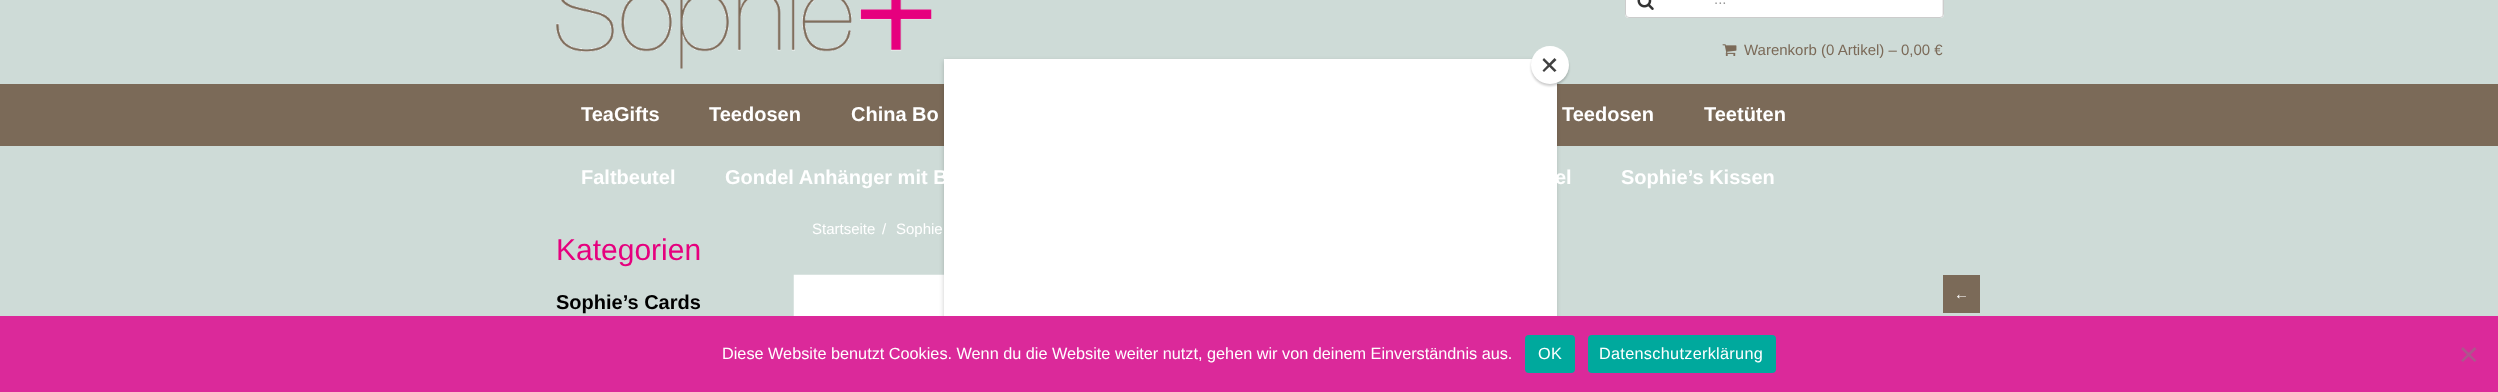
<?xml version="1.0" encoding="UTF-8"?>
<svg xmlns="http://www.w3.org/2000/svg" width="2498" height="392">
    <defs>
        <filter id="blur1" x="-50%" y="-200%" width="200%" height="500%"><feGaussianBlur stdDeviation="2.5"/></filter>
        <filter id="blur2" x="-50%" y="-200%" width="200%" height="500%"><feGaussianBlur stdDeviation="1"/></filter>
    </defs>
    <rect width="100%" height="100%" fill="#CEDBD7"/>
    <image x="556" y="0" width="376" height="69" href="img_01.png"/>
    <rect x="1625" y="-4" width="319" height="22" rx="4" fill="#FFFFFF"/>
    <path d="M 1629 -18 H 1940 C 1943 -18 1942 -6 1942 -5 V 16 C 1943 15 1943 14 1943 14 V -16 C 1943 -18 1942 -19 1940 -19 H 1628 C 1627 -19 1626 -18 1626 -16 V -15 C 1626 -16 1627 -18 1629 -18 Z" fill="#ECECEC"/>
    <rect x="1625.5" y="-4.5" width="318" height="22" rx="3.5" fill="none" stroke="#CCCCCC"/>
    <image x="1637" y="0" width="17" height="10" href="img_02.png"/>
    <text x="1714" y="4" font-family="Liberation Sans" font-size="15" fill="#999999">...</text>
    <image x="1722" y="44" width="15" height="12" href="img_03.png"/>
    <text x="1744" y="55" font-family="Liberation Sans" font-size="15" fill="#7B6A58">Warenkorb (0 Artikel) – 0,00 €</text>
    <rect x="0" y="84" width="2498" height="62" fill="#7B6A58"/>
    <image x="793" y="274" width="151" height="42" href="img_05.png"/>
    <rect x="944" y="61" width="612" height="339" fill="#000000" fill-opacity="0.2" filter="url(#blur1)"/>
    <text x="725" y="184" font-family="Liberation Sans" font-size="20" font-weight="700" fill="#FFFFFF">Gondel Anhänger mit B</text>
    <text x="1555" y="184" font-family="Liberation Sans" font-size="20" font-weight="700" fill="#FFFFFF">el</text>
    <image x="944" y="59" width="613" height="257" href="img_04.png"/>
    <rect x="1531" y="49" width="38" height="37" rx="18.5" fill="#000000" fill-opacity="0.2" filter="url(#blur2)"/>
    <circle cx="1550" cy="65" r="19" fill="#FFFFFF"/>
    <path d="M 1554.5 58 L 1556.5 60 L 1544 72 L 1542.5 70.5 Z" fill="#414141"/>
    <path d="M 1542.5 60 L 1544 58 L 1556.5 70.5 L 1554.5 72 Z" fill="#414141"/>
    <text x="581" y="121" font-family="Liberation Sans" font-size="20" font-weight="700" fill="#FFFFFF">TeaGifts</text>
    <text x="709" y="121" font-family="Liberation Sans" font-size="20" font-weight="700" fill="#FFFFFF">Teedosen</text>
    <text x="851" y="121" font-family="Liberation Sans" font-size="20" font-weight="700" fill="#FFFFFF">China Bo</text>
    <text x="1562" y="121" font-family="Liberation Sans" font-size="20" font-weight="700" fill="#FFFFFF">Teedosen</text>
    <text x="1704" y="121" font-family="Liberation Sans" font-size="20" font-weight="700" fill="#FFFFFF">Teetüten</text>
    <text x="581" y="184" font-family="Liberation Sans" font-size="20" font-weight="700" fill="#FFFFFF">Faltbeutel</text>
    <text x="1621" y="184" font-family="Liberation Sans" font-size="20" font-weight="700" fill="#FFFFFF">Sophie’s Kissen</text>
    <text x="556" y="260" font-family="Liberation Sans" font-size="30" fill="#E6007E">Kategorien</text>
    <text x="556" y="309" font-family="Liberation Sans" font-size="20" font-weight="700" fill="#000000">Sophie’s Cards</text>
    <text x="812" y="234" font-family="Liberation Sans" font-size="15" fill="#FFFFFF">Startseite</text>
    <text x="882" y="234" font-family="Liberation Sans" font-size="15" fill="#FFFFFF">/</text>
    <text x="896" y="234" font-family="Liberation Sans" font-size="15" fill="#FFFFFF">Sophie</text>
    <rect x="1943" y="275" width="37" height="38" fill="#7B6A58"/>
    <text x="1954" y="299" font-family="Liberation Sans" font-size="15" fill="#FFFFFF">←</text>
    <rect x="0" y="316" width="2498" height="76" fill="#DB299A"/>
    <text x="722" y="359" font-family="Liberation Sans" font-size="16.25" fill="#FFFFFF">Diese Website benutzt Cookies. Wenn du die Website weiter nutzt, gehen wir von deinem Einverständnis aus.</text>
    <rect x="1525" y="335" width="50" height="38" rx="4" fill="#00A99D"/>
    <text x="1538" y="359" font-family="Liberation Sans" font-size="16.25" letter-spacing="0.3" fill="#FFFFFF">OK</text>
    <rect x="1588" y="335" width="188" height="38" rx="4" fill="#00A99D"/>
    <text x="1599" y="359" font-family="Liberation Sans" font-size="16.25" letter-spacing="0.3" fill="#FFFFFF">Datenschutzerklärung</text>
    <path d="M 2474.5 347 L 2476.5 349 L 2463 362 L 2461 360.5 Z" fill="#AE558D"/>
    <path d="M 2461 349 L 2463 347 L 2476.5 360.5 L 2474.5 362 Z" fill="#AE558D"/>
</svg>
